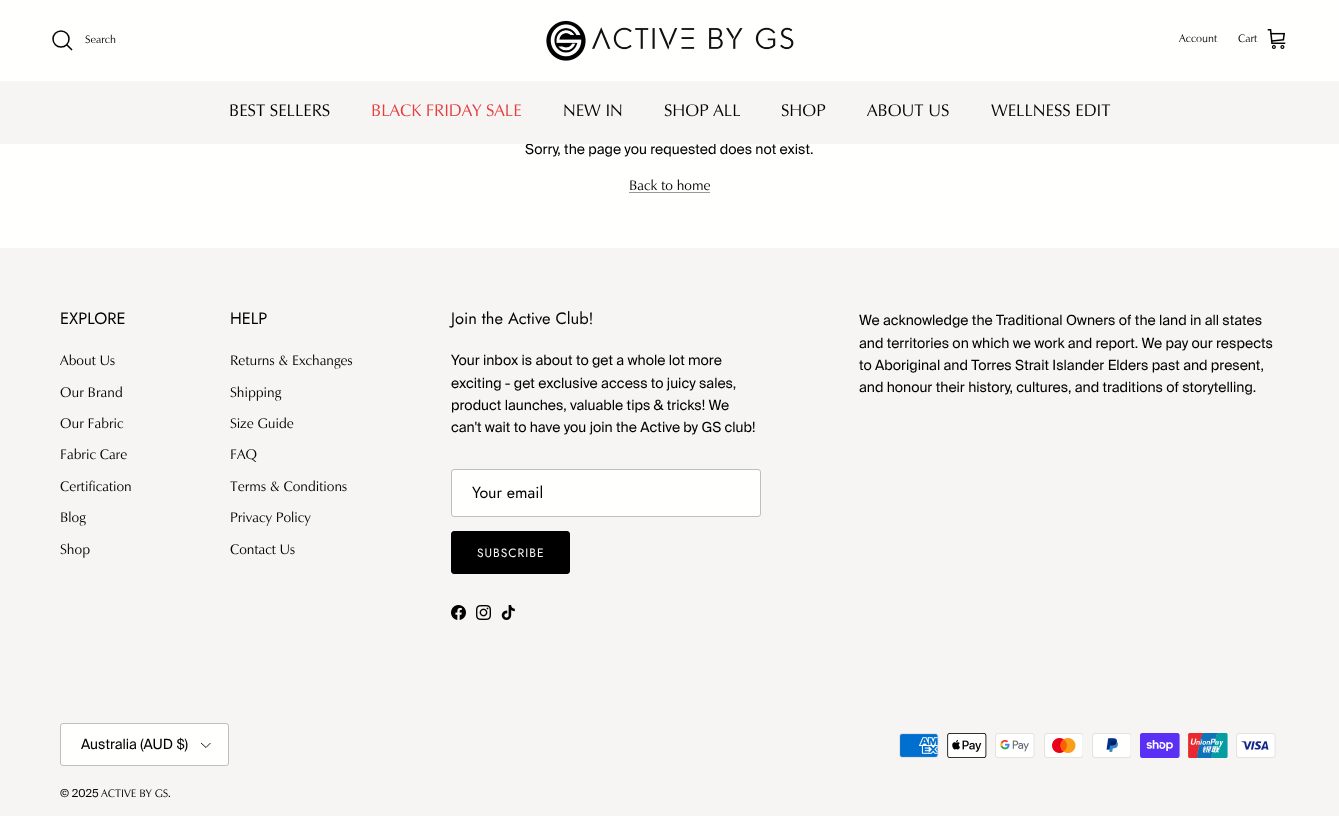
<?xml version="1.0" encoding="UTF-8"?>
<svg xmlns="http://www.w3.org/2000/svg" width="1339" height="816">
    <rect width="100%" height="100%" fill="#FFFFFD"/>
    <circle cx="61" cy="39" r="8" fill="none" stroke="#000000" stroke-width="1.5"/>
    <text x="85" y="43" font-family="'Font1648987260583'" font-size="11" fill="#000000">Search</text>
    <path d="M 67 45 L 71.5 49.5" fill="none" stroke="#000000" stroke-width="1.5" stroke-linecap="square"/>
    <image x="546" y="20" width="248" height="41" href="img_01.png"/>
    <text x="1179" y="42" font-family="'Font1648987260583'" font-size="11" fill="#000000">Account</text>
    <text x="1238" y="42" font-family="'Font1648987260583'" font-size="11" fill="#000000">Cart</text>
    <image x="1267" y="29" width="19" height="20" href="img_02.png"/>
    <text x="525" y="154" font-family="'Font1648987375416'" font-size="14" fill="#000000">Sorry, the page you requested does not exist.</text>
    <rect x="0" y="81" width="1339" height="63" fill="#F6F5F3"/>
    <text x="229" y="116" font-family="'Font1648987260583'" font-size="17" fill="#000000">BEST SELLERS</text>
    <text x="371" y="116" font-family="'Font1648987260583'" font-size="17" fill="#E53D3D">BLACK FRIDAY SALE</text>
    <text x="563" y="116" font-family="'Font1648987260583'" font-size="17" fill="#000000">NEW IN</text>
    <text x="664" y="116" font-family="'Font1648987260583'" font-size="17" fill="#000000">SHOP ALL</text>
    <text x="781" y="116" font-family="'Font1648987260583'" font-size="17" fill="#000000">SHOP</text>
    <text x="867" y="116" font-family="'Font1648987260583'" font-size="17" fill="#000000">ABOUT US</text>
    <text x="991" y="116" font-family="'Font1648987260583'" font-size="17" fill="#000000">WELLNESS EDIT</text>
    <text x="629" y="190" font-family="'Font1648987260583'" font-size="14" fill="#000000">Back to home</text>
    <rect x="629" y="192" width="81" height="1" fill="#999998"/>
    <rect x="0" y="248" width="1339" height="568" fill="#F6F5F3"/>
    <text x="60" y="324" font-family="Jost" font-size="16.5" fill="#000000">EXPLORE</text>
    <text x="60" y="365" font-family="'Font1648987260583'" font-size="14" fill="#000000">About Us</text>
    <text x="60" y="397" font-family="'Font1648987260583'" font-size="14" fill="#000000">Our Brand</text>
    <text x="60" y="428" font-family="'Font1648987260583'" font-size="14" fill="#000000">Our Fabric</text>
    <text x="60" y="459" font-family="'Font1648987260583'" font-size="14" fill="#000000">Fabric Care</text>
    <text x="60" y="491" font-family="'Font1648987260583'" font-size="14" fill="#000000">Certification</text>
    <text x="60" y="522" font-family="'Font1648987260583'" font-size="14" fill="#000000">Blog</text>
    <text x="60" y="554" font-family="'Font1648987260583'" font-size="14" fill="#000000">Shop</text>
    <text x="230" y="324" font-family="Jost" font-size="16.5" fill="#000000">HELP</text>
    <text x="230" y="365" font-family="'Font1648987260583'" font-size="14" fill="#000000">Returns &amp; Exchanges</text>
    <text x="230" y="397" font-family="'Font1648987260583'" font-size="14" fill="#000000">Shipping</text>
    <text x="230" y="428" font-family="'Font1648987260583'" font-size="14" fill="#000000">Size Guide</text>
    <text x="230" y="459" font-family="'Font1648987260583'" font-size="14" fill="#000000">FAQ</text>
    <text x="230" y="491" font-family="'Font1648987260583'" font-size="14" fill="#000000">Terms &amp; Conditions</text>
    <text x="230" y="522" font-family="'Font1648987260583'" font-size="14" fill="#000000">Privacy Policy</text>
    <text x="230" y="554" font-family="'Font1648987260583'" font-size="14" fill="#000000">Contact Us</text>
    <text x="451" y="324" font-family="Jost" font-size="16.5" fill="#000000">Join the Active Club!</text>
    <text font-family="'Font1648987375416'" font-size="14" fill="#000000">
        <tspan x="451" y="365">Your inbox is about to get a whole lot more</tspan>
        <tspan x="451" y="388">exciting - get exclusive access to juicy sales,</tspan>
        <tspan x="451" y="410">product launches, valuable tips &amp; tricks! We</tspan>
        <tspan x="451" y="432">can't wait to have you join the Active by GS club!</tspan>
    </text>
    <rect x="451.5" y="469.5" width="309" height="47" rx="2.5" fill="#FFFFFD" stroke="#BFBFBE"/>
    <text x="472" y="498" font-family="Jost" font-size="16" fill="#000000">Your email</text>
    <rect x="451.5" y="531.5" width="118" height="42" rx="2.5" fill="#000000" stroke="#000000"/>
    <text x="477" y="557" font-family="Jost" font-size="12" letter-spacing="1" fill="#F6F5F3">SUBSCRIBE</text>
    <image x="451" y="605" width="15" height="15" href="img_03.png"/>
    <image x="476" y="605" width="15" height="15" href="img_04.png"/>
    <image x="501" y="605" width="14" height="15" href="img_05.png"/>
    <text font-family="'Font1648987375416'" font-size="14" fill="#000000">
        <tspan x="859" y="325">We acknowledge the Traditional Owners of the land in all states</tspan>
        <tspan x="859" y="348">and territories on which we work and report. We pay our respects</tspan>
        <tspan x="859" y="370">to Aboriginal and Torres Strait Islander Elders past and present,</tspan>
        <tspan x="859" y="392">and honour their history, cultures, and traditions of storytelling.</tspan>
    </text>
    <rect x="60.5" y="723.5" width="168" height="42" rx="2.5" fill="#FFFFFD" stroke="#BFBFBE"/>
    <text x="81" y="749" font-family="'Font1648987375416'" font-size="14" fill="#000000">Australia (AUD $)</text>
    <path d="M 210.5 743 L 206 747.5 L 201 743" fill="none" stroke="#000000" stroke-width="0.9"/>
    <text x="60" y="797" font-family="'Font1648987375416'" font-size="11" fill="#000000">© 2025</text>
    <text x="101" y="797" font-family="'Font1648987260583'" font-size="11" fill="#000000">ACTIVE BY GS</text>
    <text x="168" y="797" font-family="'Font1648987375416'" font-size="11" fill="#000000">.</text>
    <image x="899" y="733" width="40" height="25" href="img_06.png"/>
    <image x="947" y="733" width="40" height="25" href="img_07.png"/>
    <image x="995" y="733" width="40" height="25" href="img_08.png"/>
    <image x="1044" y="733" width="39" height="25" href="img_09.png"/>
    <image x="1092" y="733" width="39" height="25" href="img_10.png"/>
    <image x="1140" y="733" width="40" height="25" href="img_11.png"/>
    <image x="1188" y="733" width="40" height="25" href="img_12.png"/>
    <image x="1236" y="733" width="40" height="25" href="img_13.png"/>
</svg>
